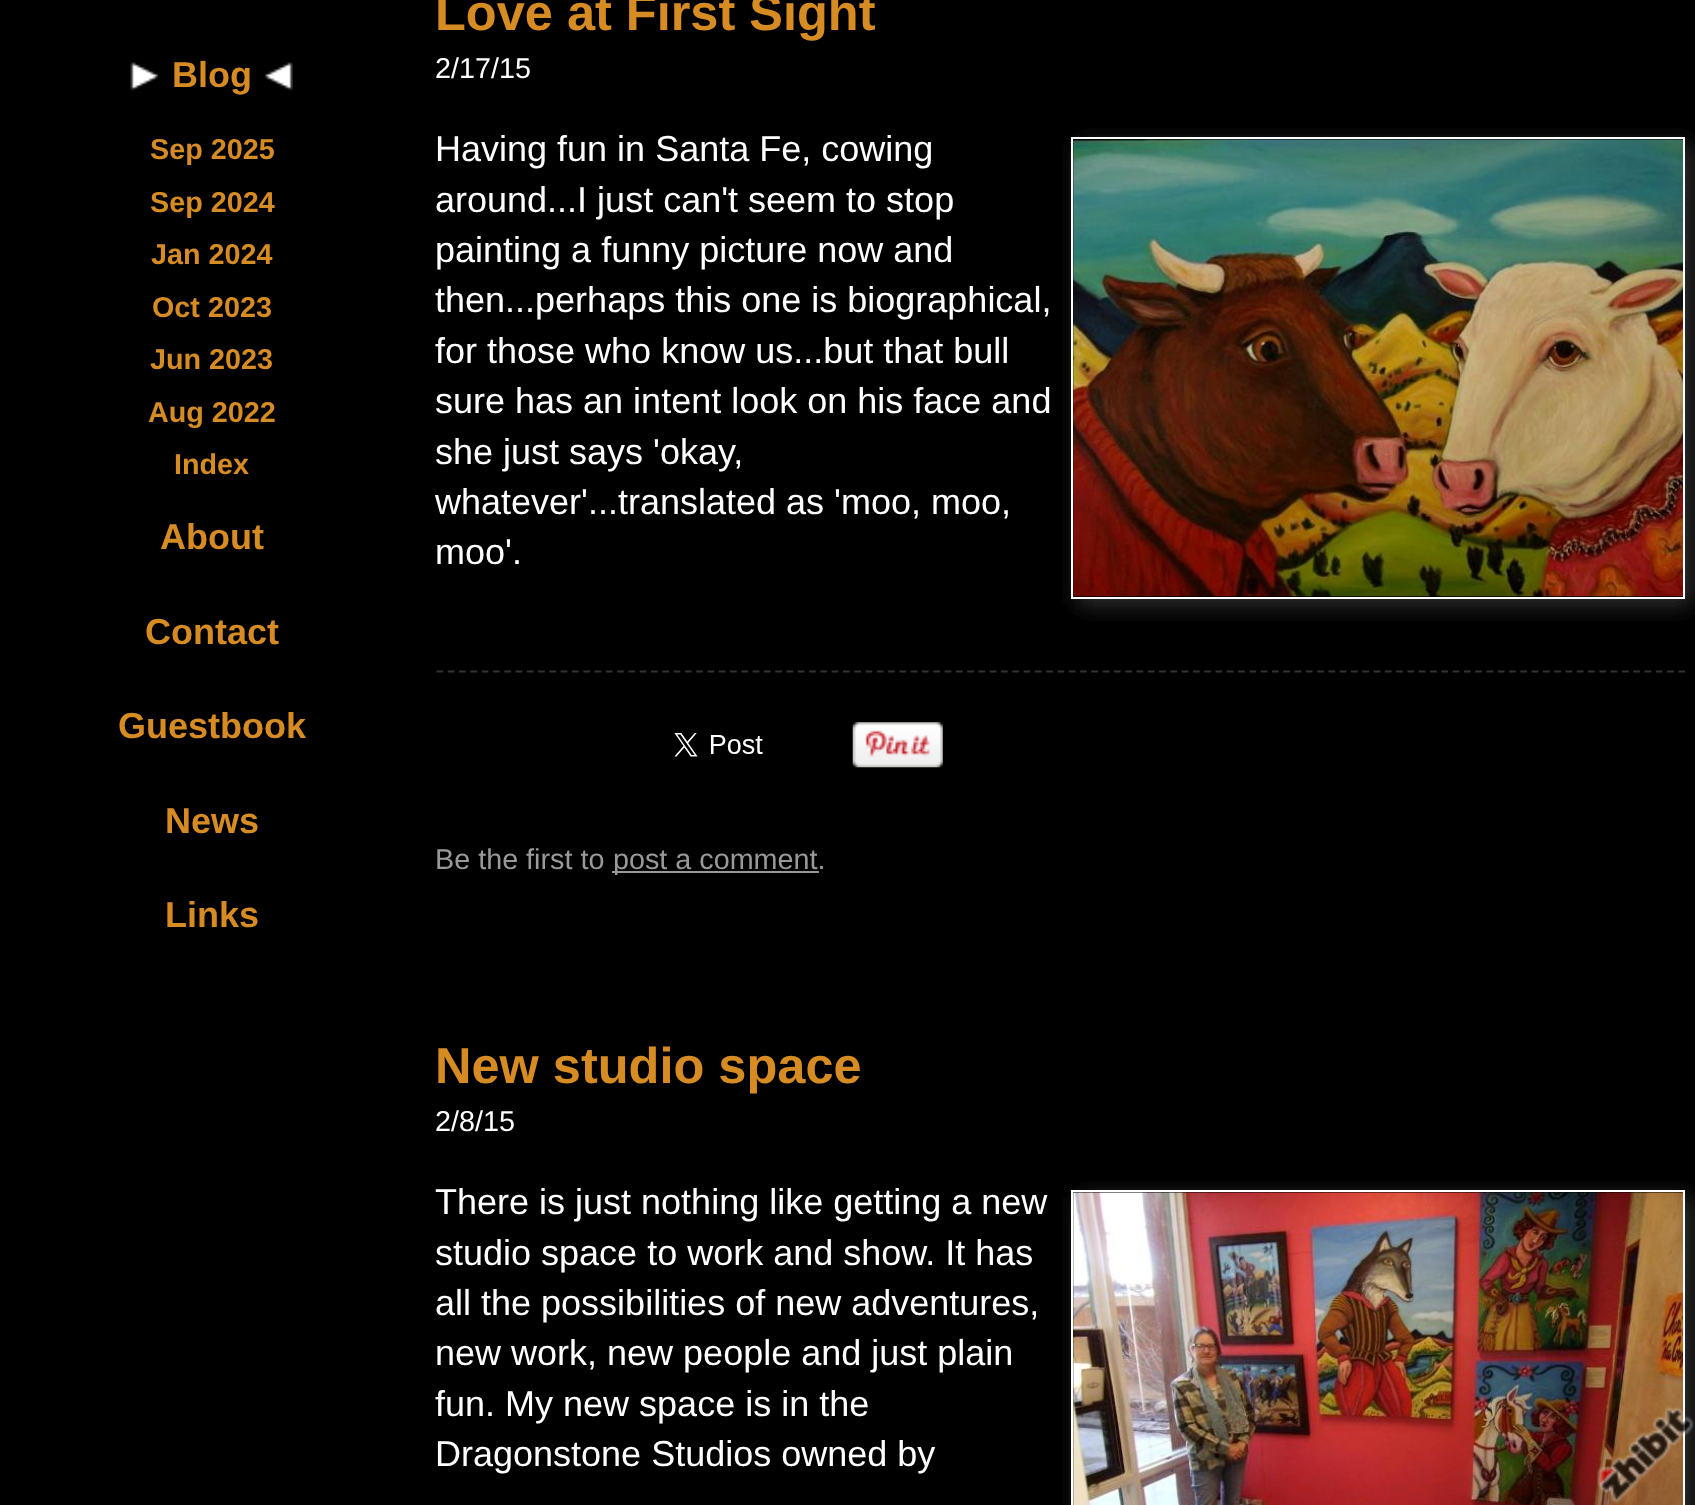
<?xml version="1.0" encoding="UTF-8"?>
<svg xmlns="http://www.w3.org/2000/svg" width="1695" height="1505">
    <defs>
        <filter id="blur1" x="-50%" y="-200%" width="200%" height="500%"><feGaussianBlur stdDeviation="11"/></filter>
    </defs>
    <rect width="100%" height="100%" fill="#000000"/>
    <image x="130" y="62" width="29" height="29" href="img_01.png"/>
    <text x="172" y="87" font-family="Liberation Sans" font-size="36" font-weight="700" fill="#D68C23">Blog</text>
    <image x="265" y="62" width="28" height="29" href="img_02.png"/>
    <text font-family="Liberation Sans" font-size="28.75" font-weight="700" fill="#D68C23">
        <tspan x="150" y="159">Sep 2025</tspan>
        <tspan x="150" y="212">Sep 2024</tspan>
    </text>
    <text x="151" y="264" font-family="Liberation Sans" font-size="28.75" font-weight="700" fill="#D68C23">Jan 2024</text>
    <text x="152" y="317" font-family="Liberation Sans" font-size="28.75" font-weight="700" fill="#D68C23">Oct 2023</text>
    <text x="150" y="369" font-family="Liberation Sans" font-size="28.75" font-weight="700" fill="#D68C23">Jun 2023</text>
    <text x="148" y="422" font-family="Liberation Sans" font-size="28.75" font-weight="700" fill="#D68C23">Aug 2022</text>
    <text x="174" y="474" font-family="Liberation Sans" font-size="28.75" font-weight="700" fill="#D68C23">Index</text>
    <text x="160" y="549" font-family="Liberation Sans" font-size="36" font-weight="700" fill="#D68C23">About</text>
    <text x="145" y="644" font-family="Liberation Sans" font-size="36" font-weight="700" fill="#D68C23">Contact</text>
    <text x="118" y="738" font-family="Liberation Sans" font-size="36" font-weight="700" fill="#D68C23">Guestbook</text>
    <text x="165" y="833" font-family="Liberation Sans" font-size="36" font-weight="700" fill="#D68C23">News</text>
    <text x="165" y="927" font-family="Liberation Sans" font-size="36" font-weight="700" fill="#D68C23">Links</text>
    <text x="435" y="30" font-family="Liberation Sans" font-size="50.5" font-weight="700" fill="#D68C23">Love at First Sight</text>
    <text x="435" y="78" font-family="Liberation Sans" font-size="28.75" fill="#FFFFFF">2/17/15</text>
    <text font-family="Liberation Sans" font-size="36" fill="#FFFFFF">
        <tspan x="435" y="161">Having fun in Santa Fe, cowing</tspan>
        <tspan x="435" y="212">around...I just can't seem to stop</tspan>
        <tspan x="435" y="262">painting a funny picture now and</tspan>
    </text>
    <rect x="1078" y="144" width="614" height="461" fill="#333333" filter="url(#blur1)"/>
    <text font-family="Liberation Sans" font-size="36" fill="#FFFFFF">
        <tspan x="435" y="312">then...perhaps this one is biographical,</tspan>
        <tspan x="435" y="363">for those who know us...but that bull</tspan>
        <tspan x="435" y="413">sure has an intent look on his face and</tspan>
        <tspan x="435" y="464">she just says 'okay,</tspan>
        <tspan x="435" y="514">whatever'...translated as 'moo, moo,</tspan>
        <tspan x="435" y="564">moo'.</tspan>
    </text>
    <rect x="1072" y="138" width="612" height="460" fill="#000000" stroke="#FFFFFF" stroke-width="2"/>
    <image x="1073" y="139" width="610" height="458" href="img_03.png"/>
    <path d="M 436.5 671.5 H 1685" fill="none" stroke="#333333" stroke-width="2.2" stroke-dasharray="6.75 4.54"/>
    <image x="674" y="733" width="89" height="24" href="img_04.png"/>
    <image x="852" y="722" width="91" height="46" href="img_05.png"/>
    <text x="435" y="869" font-family="Liberation Sans" font-size="28.75" fill="#999999">Be the first to</text>
    <rect x="612" y="871" width="207" height="2" fill="#999999"/>
    <text x="613" y="869" font-family="Liberation Sans" font-size="28.75" fill="#999999">post a comment.</text>
    <text x="435" y="1083" font-family="Liberation Sans" font-size="50.5" font-weight="700" fill="#D68C23">New studio space</text>
    <text x="435" y="1131" font-family="Liberation Sans" font-size="28.75" fill="#FFFFFF">2/8/15</text>
    <rect x="1078" y="1197" width="614" height="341" fill="#333333" filter="url(#blur1)"/>
    <text font-family="Liberation Sans" font-size="36" fill="#FFFFFF">
        <tspan x="435" y="1214">There is just nothing like getting a new</tspan>
        <tspan x="435" y="1265">studio space to work and show. It has</tspan>
        <tspan x="435" y="1315">all the possibilities of new adventures,</tspan>
        <tspan x="435" y="1365">new work, new people and just plain</tspan>
        <tspan x="435" y="1416">fun. My new space is in the</tspan>
        <tspan x="435" y="1466">Dragonstone Studios owned by</tspan>
    </text>
    <rect x="1072" y="1191" width="612" height="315" fill="#000000" stroke="#FFFFFF" stroke-width="2"/>
    <image x="1073" y="1192" width="610" height="313" href="img_06.png"/>
    <image x="1596" y="1406" width="99" height="98" href="img_07.png"/>
</svg>
